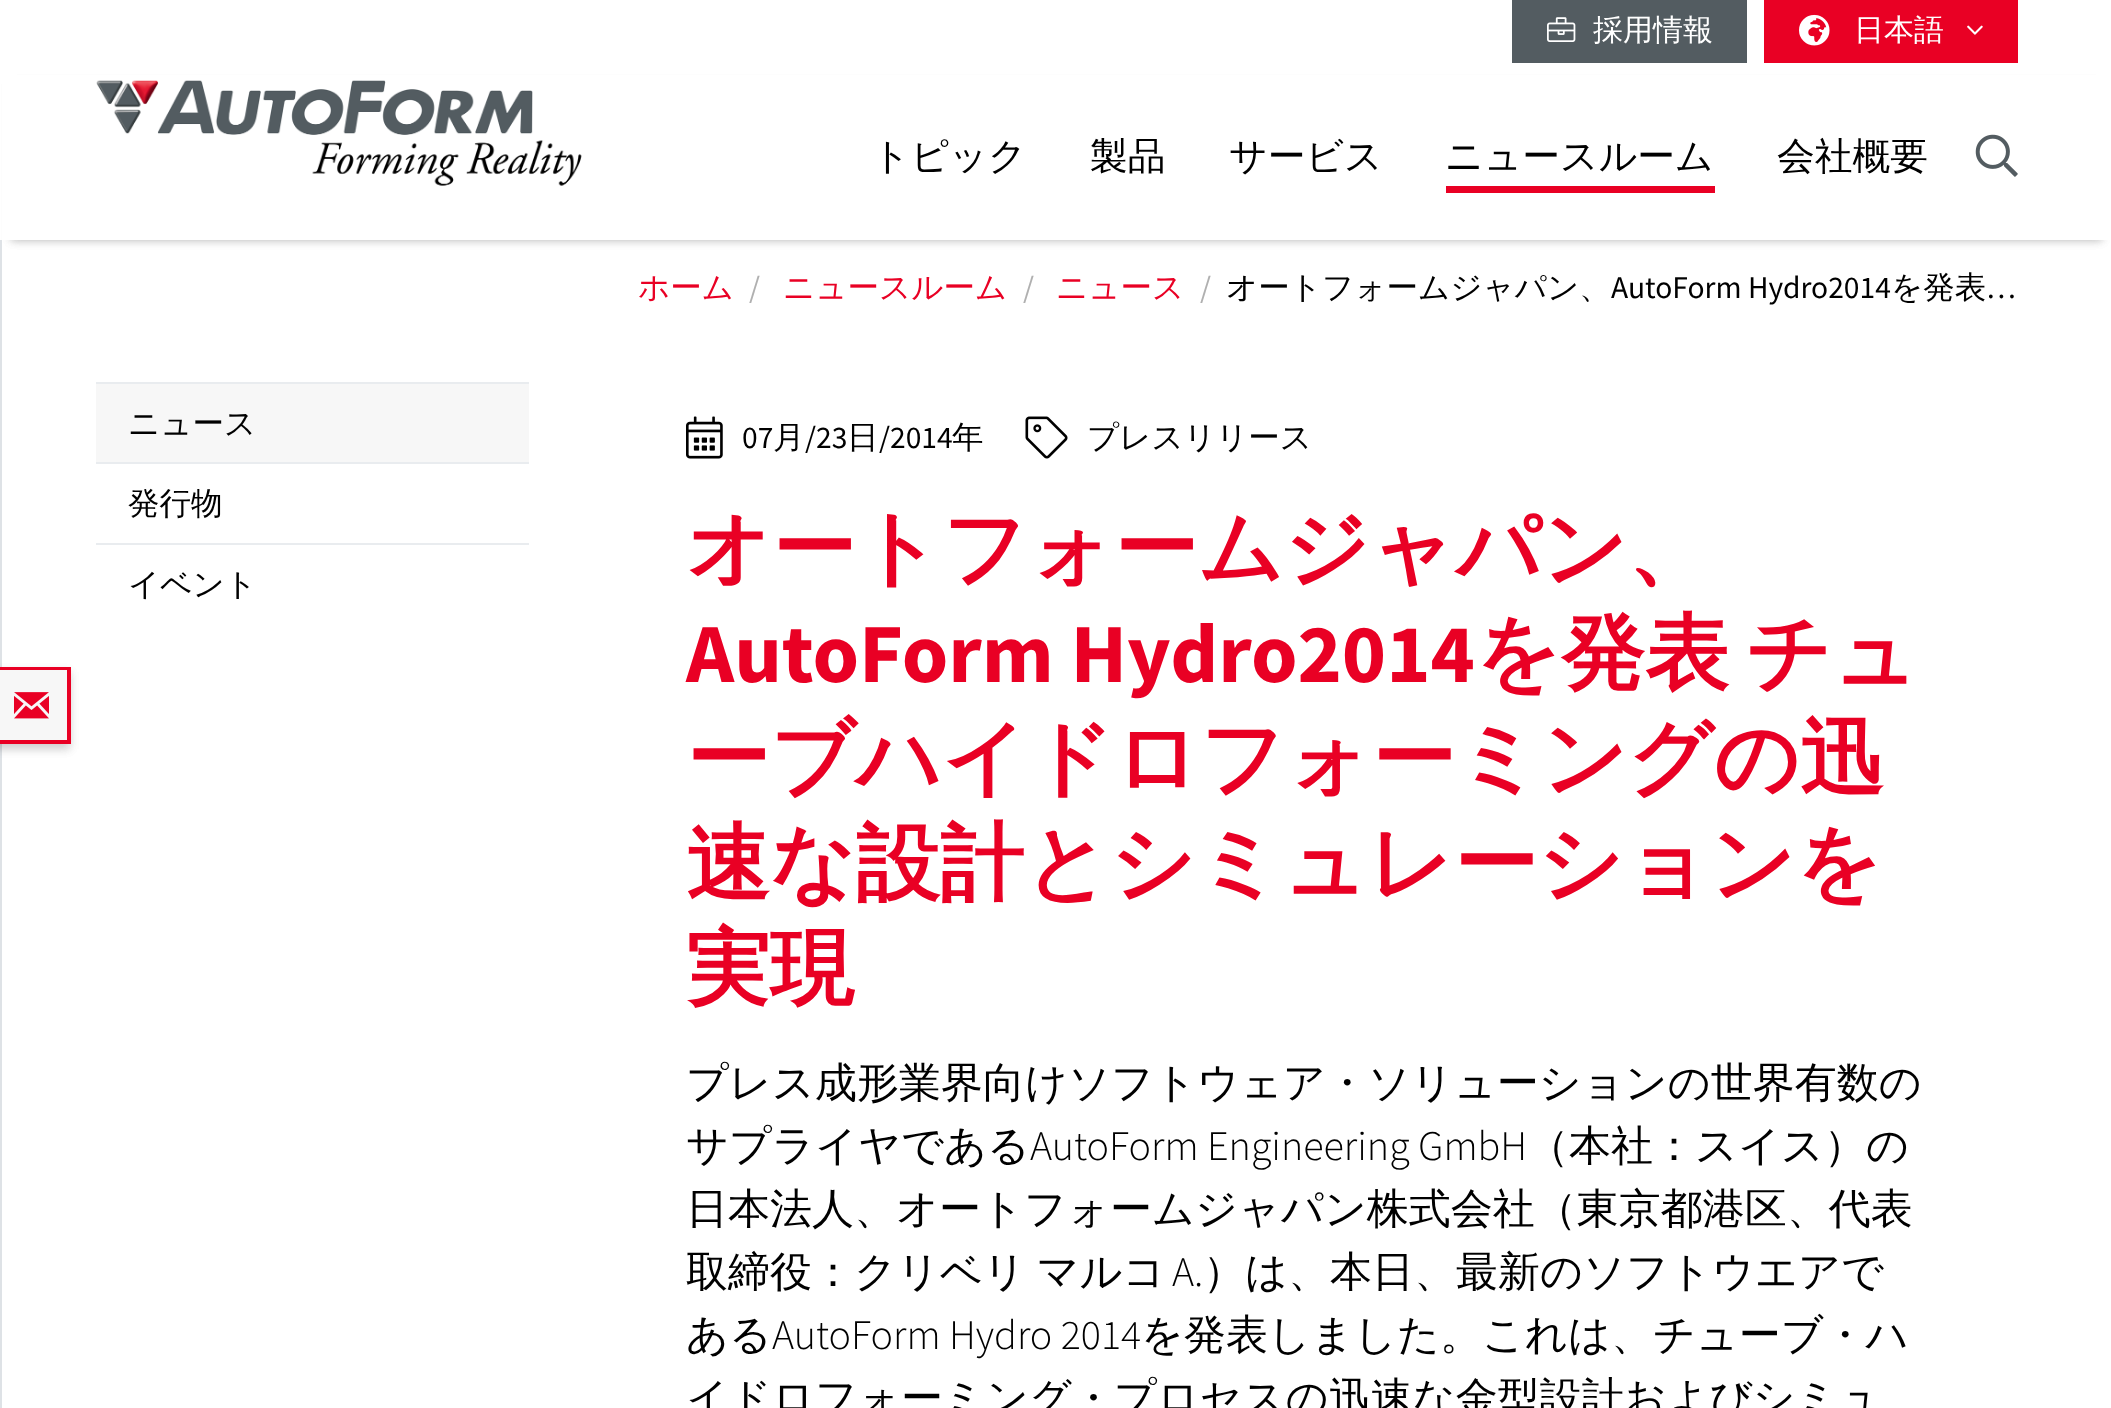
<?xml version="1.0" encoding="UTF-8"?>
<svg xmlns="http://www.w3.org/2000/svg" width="2111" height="1408">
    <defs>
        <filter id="blur1" x="-50%" y="-200%" width="200%" height="500%"><feGaussianBlur stdDeviation="5"/></filter>
    </defs>
    <rect width="100%" height="100%" fill="#FFFFFF"/>
    <rect x="0" y="240" width="2" height="1168" fill="#DEE2E6"/>
    <rect x="1512" y="0" width="235" height="63" fill="#535C61"/>
    <image x="1547" y="17" width="29" height="25" href="img_01.png"/>
    <text x="1593" y="40" font-family="WenQuanYi Zen Hei" font-size="30" font-weight="500" fill="#FFFFFF">採用情報</text>
    <rect x="1764" y="0" width="254" height="63" fill="#E90024"/>
    <image x="1799" y="14" width="31" height="32" href="img_02.png"/>
    <text x="1854" y="40" font-family="WenQuanYi Zen Hei" font-size="30" font-weight="500" fill="#FFFFFF">日本語</text>
    <image x="1967" y="25" width="16" height="10" href="img_03.png"/>
    <rect x="11" y="84" width="2091" height="156" fill="#000000" fill-opacity="0.16" filter="url(#blur1)"/>
    <rect x="11" y="84" width="2091" height="156" fill="#000000" fill-opacity="0.16" filter="url(#blur1)"/>
    <rect x="2" y="75" width="2109" height="165" fill="#FFFFFF"/>
    <image x="96" y="80" width="486" height="106" href="img_04.png"/>
    <text x="872" y="169" font-family="WenQuanYi Zen Hei" font-size="37.75" font-weight="500" fill="#000000">トピック</text>
    <text x="1090" y="169" font-family="WenQuanYi Zen Hei" font-size="37.75" font-weight="500" fill="#000000">製品</text>
    <text x="1229" y="169" font-family="WenQuanYi Zen Hei" font-size="37.75" font-weight="500" fill="#000000">サービス</text>
    <text x="1445" y="169" font-family="WenQuanYi Zen Hei" font-size="37.75" font-weight="500" fill="#000000">ニュースルーム</text>
    <rect x="1446" y="186" width="269" height="7" fill="#E90024"/>
    <text x="1777" y="169" font-family="WenQuanYi Zen Hei" font-size="37.75" font-weight="500" fill="#000000">会社概要</text>
    <image x="1975" y="134" width="43" height="43" href="img_05.png"/>
    <rect x="-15" y="672" width="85" height="77" fill="#000000" fill-opacity="0.1" filter="url(#blur1)"/>
    <rect x="-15" y="672" width="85" height="77" fill="#000000" fill-opacity="0.1" filter="url(#blur1)"/>
    <rect x="0" y="667" width="70" height="3" fill="#E90024"/>
    <rect x="67" y="667" width="4" height="77" fill="#E90024"/>
    <rect x="0" y="740" width="70" height="4" fill="#E90024"/>
    <rect x="0" y="670" width="67" height="70" fill="#F7F7F7"/>
    <image x="14" y="692" width="35" height="27" href="img_06.png"/>
    <text x="638" y="298" font-family="WenQuanYi Zen Hei" font-size="31.5" font-weight="500" fill="#E90024">ホーム</text>
    <text x="749" y="298" font-family="Source Sans Pro" font-size="31.5" fill="#B0B0B0">/</text>
    <text x="783" y="298" font-family="WenQuanYi Zen Hei" font-size="31.5" font-weight="500" fill="#E90024">ニュースルーム</text>
    <text x="1023" y="298" font-family="Source Sans Pro" font-size="31.5" fill="#B0B0B0">/</text>
    <text x="1056" y="298" font-family="WenQuanYi Zen Hei" font-size="31.5" font-weight="500" fill="#E90024">ニュース</text>
    <text x="1200" y="298" font-family="Source Sans Pro" font-size="31.5" fill="#B0B0B0">/</text>
    <text x="1226" y="298" font-family="WenQuanYi Zen Hei" font-size="31.5" font-weight="500" fill="#000000">オートフォームジャパン、</text>
    <text x="1611" y="298" font-family="Source Sans Pro" font-size="31.5" fill="#000000">AutoForm Hydro2014</text>
    <text x="1891" y="298" font-family="WenQuanYi Zen Hei" font-size="31.5" font-weight="500" fill="#000000">を発表</text>
    <text x="1986" y="298" font-family="Source Sans Pro" font-size="31.5" fill="#000000">…</text>
    <rect x="96" y="384" width="433" height="78" fill="#F7F7F7"/>
    <rect x="96" y="382" width="433" height="2" fill="#E9ECEF"/>
    <text x="128" y="434" font-family="WenQuanYi Zen Hei" font-size="31.5" font-weight="500" fill="#000000">ニュース</text>
    <rect x="96" y="462" width="433" height="2" fill="#E9ECEF"/>
    <text x="128" y="514" font-family="WenQuanYi Zen Hei" font-size="31.5" font-weight="500" fill="#000000">発行物</text>
    <rect x="96" y="543" width="433" height="2" fill="#E9ECEF"/>
    <text x="128" y="595" font-family="WenQuanYi Zen Hei" font-size="31.5" font-weight="500" fill="#000000">イベント</text>
    <image x="686" y="416" width="37" height="43" href="img_07.png"/>
    <text x="742" y="448" font-family="Source Sans Pro" font-size="31.5" fill="#000000">07</text>
    <text x="773" y="448" font-family="WenQuanYi Zen Hei" font-size="31.5" font-weight="500" fill="#000000">月</text>
    <text x="805" y="448" font-family="Source Sans Pro" font-size="31.5" fill="#000000">/23</text>
    <text x="847" y="448" font-family="WenQuanYi Zen Hei" font-size="31.5" font-weight="500" fill="#000000">日</text>
    <text x="879" y="448" font-family="Source Sans Pro" font-size="31.5" fill="#000000">/2014</text>
    <text x="952" y="448" font-family="WenQuanYi Zen Hei" font-size="31.5" font-weight="500" fill="#000000">年</text>
    <image x="1025" y="416" width="43" height="43" href="img_08.png"/>
    <text x="1087" y="448" font-family="WenQuanYi Zen Hei" font-size="31.5" font-weight="500" fill="#000000">プレスリリース</text>
    <text x="686" y="577" font-family="WenQuanYi Zen Hei" font-size="84" font-weight="700" fill="#E90024">オートフォームジャパン、</text>
    <text x="686" y="682" font-family="Source Sans Pro" font-size="84" font-weight="700" fill="#E90024">AutoForm Hydro2014</text>
    <text x="1475" y="682" font-family="WenQuanYi Zen Hei" font-size="84" font-weight="700" fill="#E90024">を発表</text>
    <text x="1746" y="682" font-family="WenQuanYi Zen Hei" font-size="84" font-weight="700" fill="#E90024">チュ</text>
    <text font-family="WenQuanYi Zen Hei" font-size="84" font-weight="700" fill="#E90024">
        <tspan x="686" y="787">ーブハイドロフォーミングの迅</tspan>
        <tspan x="686" y="892">速な設計とシミュレーションを</tspan>
        <tspan x="686" y="997">実現</tspan>
    </text>
    <text font-family="WenQuanYi Zen Hei" font-size="42" font-weight="500" fill="#000000">
        <tspan x="686" y="1097">プレス成形業界向けソフトウェア・ソリューションの世界有数の</tspan>
        <tspan x="686" y="1160">サプライヤである</tspan>
    </text>
    <text x="1030" y="1160" font-family="Source Sans Pro" font-size="42" font-weight="300" fill="#000000">AutoForm Engineering GmbH</text>
    <text x="1527" y="1160" font-family="WenQuanYi Zen Hei" font-size="42" font-weight="500" fill="#000000">（本社：スイス）の</text>
    <text font-family="WenQuanYi Zen Hei" font-size="42" font-weight="500" fill="#000000">
        <tspan x="686" y="1223">日本法人、オートフォームジャパン株式会社（東京都港区、代表</tspan>
        <tspan x="686" y="1286" word-spacing="-2">取締役：クリベリ マルコ</tspan>
    </text>
    <text x="1172" y="1286" font-family="Source Sans Pro" font-size="42" font-weight="300" fill="#000000">A.</text>
    <text x="1203" y="1286" font-family="WenQuanYi Zen Hei" font-size="42" font-weight="500" fill="#000000">）は、本日、最新のソフトウエアで</text>
    <text x="686" y="1349" font-family="WenQuanYi Zen Hei" font-size="42" font-weight="500" fill="#000000">ある</text>
    <text x="772" y="1349" font-family="Source Sans Pro" font-size="42" font-weight="300" fill="#000000">AutoForm Hydro 2014</text>
    <text x="1141" y="1349" font-family="WenQuanYi Zen Hei" font-size="42" font-weight="500" fill="#000000">を発表しました。これは、チューブ・ハ</text>
    <text x="686" y="1412" font-family="WenQuanYi Zen Hei" font-size="42" font-weight="500" fill="#000000">イドロフォーミング・プロセスの迅速な金型設計およびシミュ</text>
</svg>
